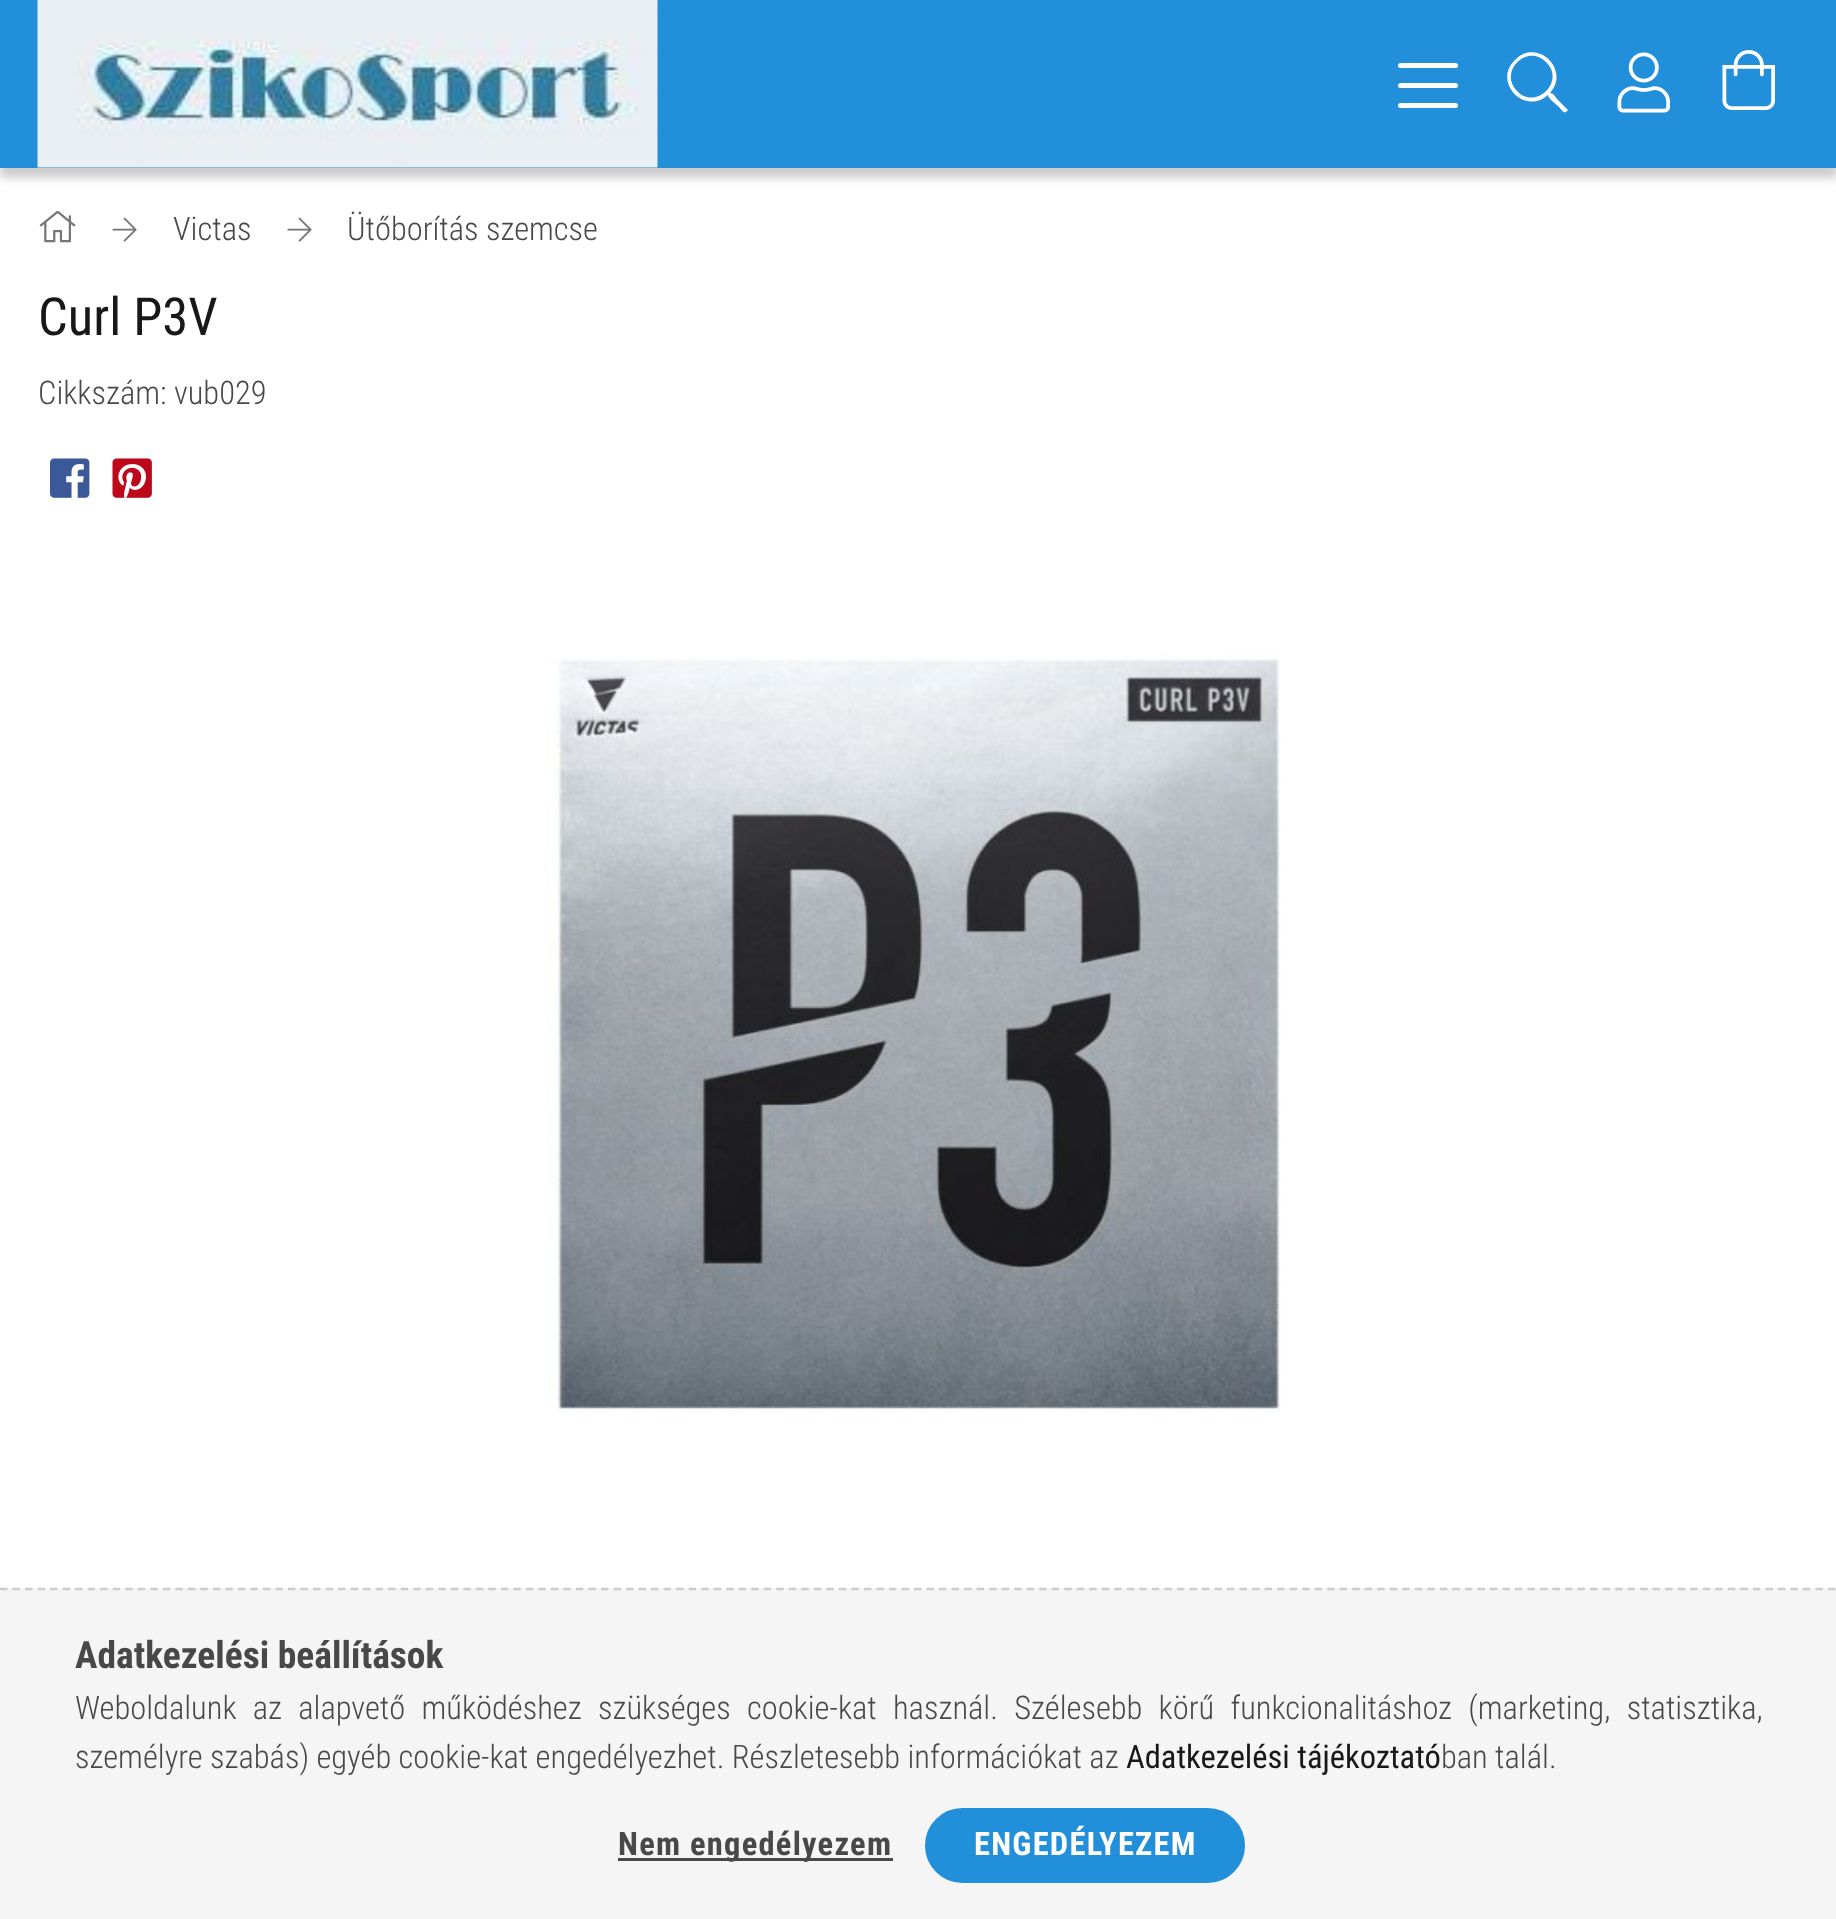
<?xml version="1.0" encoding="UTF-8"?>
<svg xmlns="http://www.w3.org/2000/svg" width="1836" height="1919">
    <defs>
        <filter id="blur1" x="-50%" y="-200%" width="200%" height="500%"><feGaussianBlur stdDeviation="5"/></filter>
    </defs>
    <rect width="100%" height="100%" fill="#FFFFFF"/>
    <rect x="0" y="10" width="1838" height="168" fill="#000000" fill-opacity="0.2" filter="url(#blur1)"/>
    <rect x="0" y="0" width="1836" height="168" fill="#218FD9"/>
    <image x="37" y="0" width="621" height="168" href="img_01.png"/>
    <rect x="1398" y="63" width="60" height="5" rx="2.5" fill="#FFFFFF"/>
    <rect x="1398" y="83" width="60" height="5" rx="2.5" fill="#FFFFFF"/>
    <rect x="1398" y="103" width="60" height="5" rx="2.5" fill="#FFFFFF"/>
    <path d="M 1567 109 L 1568 110 L 1566 112 C 1564 114 1560 108 1559 107 L 1551 100 C 1549 97 1548 97 1548 95 C 1525 116 1492 82 1515 60 C 1537 37 1571 70 1550 93 C 1553 93 1555 96 1557 99 Z M 1517 91 C 1536 111 1566 81 1546 62 C 1527 43 1498 72 1517 91 Z" fill="#FFFFFF"/>
    <image x="1617" y="52" width="53" height="61" href="img_02.png"/>
    <image x="1722" y="50" width="53" height="60" href="img_03.png"/>
    <image x="39" y="211" width="37" height="32" href="img_04.png"/>
    <image x="112" y="217" width="25" height="25" href="img_05.png"/>
    <text x="173" y="240" font-family="Roboto Condensed" font-size="32.5" font-weight="300" fill="#484848">Victas</text>
    <image x="287" y="217" width="25" height="25" href="img_05.png"/>
    <text x="347" y="240" font-family="Roboto Condensed" font-size="32.5" font-weight="300" fill="#484848">Ütőborítás szemcse</text>
    <text x="38" y="335" font-family="Roboto Condensed" font-size="52.5" fill="#181818">Curl P3V</text>
    <text x="38" y="404" font-family="Roboto Condensed" font-size="32.5" font-weight="300" fill="#484848">Cikkszám: vub029</text>
    <image x="50" y="458" width="40" height="40" href="img_06.png"/>
    <image x="112" y="458" width="40" height="40" href="img_07.png"/>
    <image x="545" y="655" width="736" height="759" href="img_08.png"/>
    <rect x="0" y="1588" width="1836" height="331" fill="#F5F5F5"/>
    <path d="M 0 1589 H 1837.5" fill="none" stroke="#CCCCCC" stroke-width="2.5" stroke-dasharray="7.5 5.02"/>
    <text x="75" y="1668" font-family="Roboto Condensed" font-size="37.5" font-weight="700" fill="#484848">Adatkezelési beállítások</text>
    <text font-family="Roboto Condensed" font-size="32.5" font-weight="300" fill="#484848">
        <tspan x="75" y="1719" word-spacing="8.9">Weboldalunk az alapvető működéshez szükséges cookie-kat használ. Szélesebb körű funkcionalitáshoz (marketing, statisztika,</tspan>
        <tspan x="75" y="1768">személyre szabás) egyéb cookie-kat engedélyezhet. Részletesebb információkat az</tspan>
    </text>
    <text x="1126" y="1768" font-family="Roboto Condensed" font-size="32.5" fill="#181818">Adatkezelési tájékoztató</text>
    <text x="1441" y="1768" font-family="Roboto Condensed" font-size="32.5" font-weight="300" fill="#484848">ban talál.</text>
    <rect x="618" y="1858" width="275" height="3" fill="#484848"/>
    <text x="618" y="1855" font-family="Roboto Condensed" font-size="32.5" font-weight="700" letter-spacing="1.25" fill="#484848">Nem engedélyezem</text>
    <rect x="926.5" y="1809.5" width="317" height="72" rx="36" fill="#218FD9" stroke="#218FD9" stroke-width="3"/>
    <text x="974" y="1855" font-family="Roboto Condensed" font-size="32.5" font-weight="700" letter-spacing="1.25" fill="#FFFFFF">ENGEDÉLYEZEM</text>
</svg>
